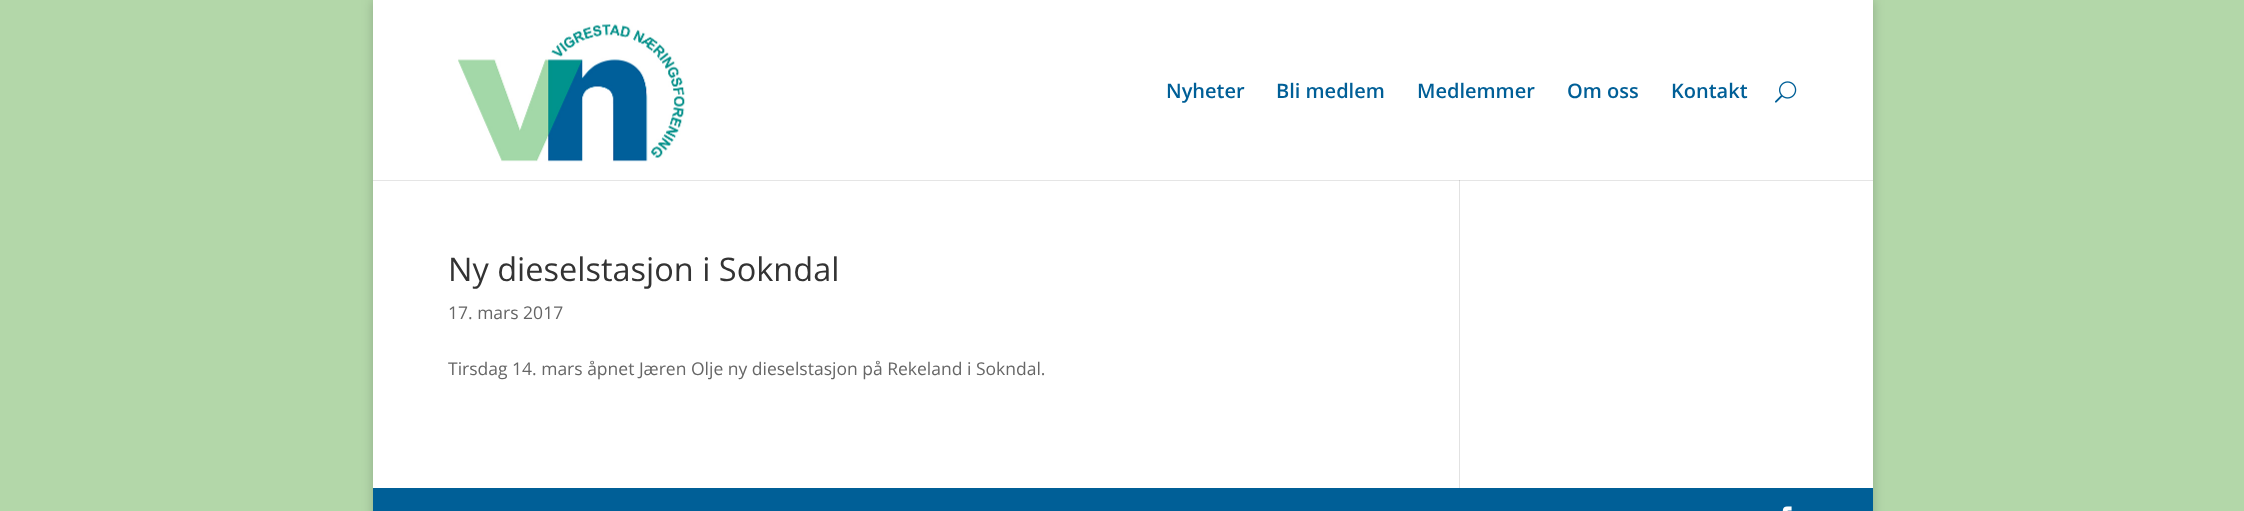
<?xml version="1.0" encoding="UTF-8"?>
<svg xmlns="http://www.w3.org/2000/svg" width="2244" height="511">
    <defs>
        <filter id="blur1" x="-50%" y="-200%" width="200%" height="500%"><feGaussianBlur stdDeviation="6"/></filter>
    </defs>
    <rect width="100%" height="100%" fill="#B3D7A9"/>
    <rect x="373" y="0" width="1500" height="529" fill="#000000" fill-opacity="0.2" filter="url(#blur1)"/>
    <rect x="373" y="180" width="1500" height="308" fill="#FFFFFF"/>
    <rect x="1459" y="180" width="1" height="308" fill="#E2E2E2"/>
    <path d="M 373 180 V 181 H 1873 V 1 H 1872 V 180 Z" fill="#000000" fill-opacity="0.1"/>
    <rect x="373" y="0" width="1500" height="180" fill="#FFFFFF"/>
    <image x="458" y="24" width="227" height="138" href="img_01.png"/>
    <text x="1166" y="98" font-family="Open Sans" font-size="20" font-weight="600" fill="#005F97">Nyheter</text>
    <text x="1276" y="98" font-family="Open Sans" font-size="20" font-weight="600" fill="#005F97">Bli medlem</text>
    <text x="1417" y="98" font-family="Open Sans" font-size="20" font-weight="600" fill="#005F97">Medlemmer</text>
    <text x="1567" y="98" font-family="Open Sans" font-size="20" font-weight="600" fill="#005F97">Om oss</text>
    <text x="1671" y="98" font-family="Open Sans" font-size="20" font-weight="600" fill="#005F97">Kontakt</text>
    <image x="1775" y="81" width="22" height="22" href="img_02.png"/>
    <text x="448" y="281" font-family="Open Sans" font-size="32.5" fill="#333333">Ny dieselstasjon i Sokndal</text>
    <text x="448" y="319" font-family="Open Sans" font-size="17.5" fill="#666666">17. mars 2017</text>
    <text x="448" y="375" font-family="Open Sans" font-size="17.5" fill="#666666">Tirsdag 14. mars åpnet Jæren Olje ny dieselstasjon på Rekeland i Sokndal.</text>
    <rect x="373" y="488" width="1500" height="23" fill="#005F97"/>
    <image x="1782" y="506" width="10" height="5" href="img_03.png"/>
</svg>
